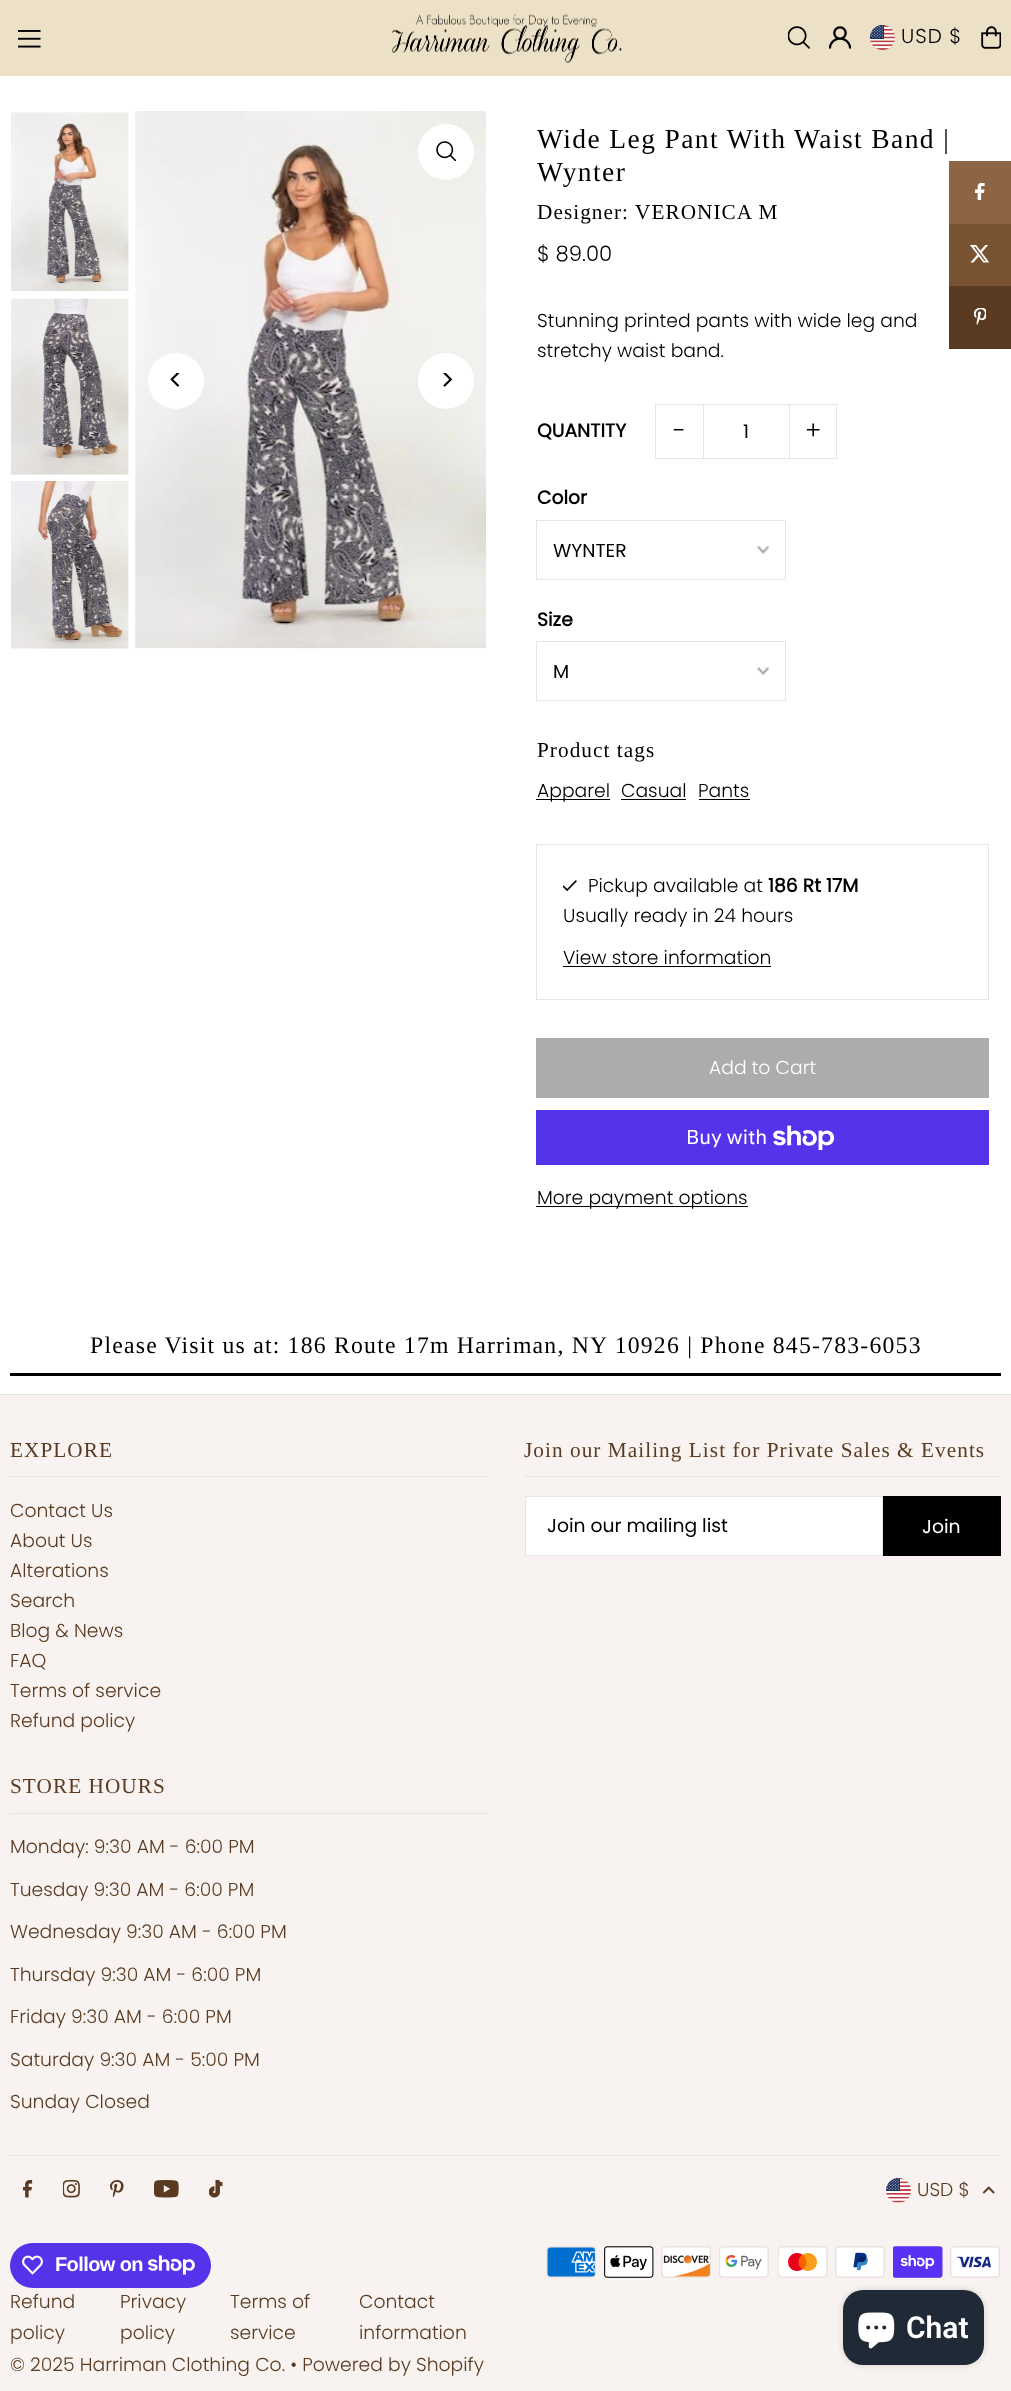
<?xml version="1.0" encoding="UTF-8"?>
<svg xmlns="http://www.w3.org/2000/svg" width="1011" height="2391">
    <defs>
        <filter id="blur1" x="-50%" y="-200%" width="200%" height="500%"><feGaussianBlur stdDeviation="3"/></filter>
    </defs>
    <rect width="100%" height="100%" fill="#FFFFFF"/>
    <rect x="0" y="0" width="1011" height="76" fill="#ECE0C6"/>
    <image x="18" y="30" width="23" height="18" href="img_01.png"/>
    <image x="392" y="14" width="230" height="49" href="img_02.png"/>
    <image x="788" y="26" width="22" height="23" href="img_03.png"/>
    <image x="829" y="26" width="22" height="23" href="img_04.png"/>
    <image x="870" y="25" width="25" height="25" href="img_05.png"/>
    <text x="901" y="43" font-family="Poppins" font-size="20" font-weight="300" letter-spacing="1" fill="#000000">USD $</text>
    <image x="981" y="26" width="20" height="23" href="img_06.png"/>
    <image x="11" y="112" width="118" height="179" href="img_07.png"/>
    <image x="11" y="298" width="118" height="177" href="img_08.png"/>
    <image x="11" y="481" width="118" height="168" href="img_09.png"/>
    <image x="135" y="111" width="351" height="538" href="img_10.png"/>
    <circle cx="446" cy="152" r="28" fill="#FFFFFF"/>
    <image x="436" y="141" width="20" height="20" href="img_11.png"/>
    <circle cx="176" cy="381" r="28" fill="#FFFFFF"/>
    <image x="170" y="373" width="10" height="14" href="img_12.png"/>
    <circle cx="446" cy="381" r="28" fill="#FFFFFF"/>
    <image x="443" y="373" width="10" height="14" href="img_13.png"/>
    <text font-family="Liberation Serif" font-size="27.5" letter-spacing="1.4" fill="#000000">
        <tspan x="537" y="148">Wide Leg Pant With Waist Band |</tspan>
        <tspan x="537" y="181">Wynter</tspan>
    </text>
    <text x="537" y="219" font-family="Liberation Serif" font-size="21.25" letter-spacing="1.05" fill="#000000">Designer: VERONICA M</text>
    <text x="537" y="261" font-family="Poppins" font-size="21.25" font-weight="300" fill="#000000">$ 89.00</text>
    <text font-family="Poppins" font-size="18.75" font-weight="300" fill="#000000">
        <tspan x="537" y="327">Stunning printed pants with wide leg and</tspan>
        <tspan x="537" y="357">stretchy waist band.</tspan>
    </text>
    <text x="537" y="437" font-family="Poppins" font-size="18.75" font-weight="700" fill="#000000">QUANTITY</text>
    <rect x="655" y="404" width="48" height="1" fill="#E5E5E5"/>
    <rect x="655" y="458" width="48" height="1" fill="#E5E5E5"/>
    <rect x="655" y="404" width="1" height="55" fill="#E5E5E5"/>
    <text x="673" y="439" font-family="Poppins" font-size="25" font-weight="300" fill="#000000">-</text>
    <rect x="703.5" y="404.5" width="86" height="54" fill="none" stroke="#E5E5E5"/>
    <text x="743" y="438" font-family="Poppins" font-size="18.75" fill="#000000">1</text>
    <rect x="790" y="404" width="48" height="1" fill="#E5E5E5"/>
    <rect x="836" y="404" width="1" height="55" fill="#E5E5E5"/>
    <rect x="790" y="458" width="48" height="1" fill="#E5E5E5"/>
    <text x="805" y="439" font-family="Poppins" font-size="25" font-weight="300" fill="#000000">+</text>
    <text x="537" y="504" font-family="Poppins" font-size="18.75" font-weight="700" fill="#000000">Color</text>
    <image x="757" y="546" width="12" height="8" href="img_14.png"/>
    <rect x="536.5" y="520.5" width="249" height="59" fill="none" stroke="#E5E5E5"/>
    <text x="553" y="557" font-family="Poppins" font-size="18.75" fill="#000000">WYNTER</text>
    <text x="537" y="626" font-family="Poppins" font-size="18.75" font-weight="700" fill="#000000">Size</text>
    <image x="757" y="667" width="12" height="8" href="img_15.png"/>
    <rect x="536.5" y="641.5" width="249" height="59" fill="none" stroke="#E5E5E5"/>
    <text x="553" y="678" font-family="Poppins" font-size="18.75" fill="#000000">M</text>
    <text x="537" y="757" font-family="Liberation Serif" font-size="21.25" letter-spacing="1.05" fill="#000000">Product tags</text>
    <rect x="536" y="799" width="74" height="1" fill="#000000"/>
    <text x="537" y="797" font-family="Poppins" font-size="18.75" font-weight="300" fill="#000000">Apparel</text>
    <text x="621" y="797" font-family="Poppins" font-size="18.75" font-weight="300" fill="#000000">Casual</text>
    <rect x="621" y="799" width="65" height="1" fill="#000000"/>
    <text x="698" y="797" font-family="Poppins" font-size="18.75" font-weight="300" fill="#000000">Pants</text>
    <rect x="699" y="799" width="51" height="1" fill="#000000"/>
    <rect x="536.5" y="844.5" width="452" height="155" fill="none" stroke="#E5E5E5"/>
    <image x="563" y="880" width="14" height="11" href="img_16.png"/>
    <text x="588" y="892" font-family="Poppins" font-size="18.75" font-weight="300" fill="#000000">Pickup available at</text>
    <text x="768" y="892" font-family="Poppins" font-size="18.75" font-weight="700" fill="#000000">186 Rt 17M</text>
    <text x="563" y="922" font-family="Poppins" font-size="18.75" font-weight="300" fill="#000000">Usually ready in 24 hours</text>
    <text x="563" y="964" font-family="Poppins" font-size="18.75" font-weight="300" fill="#000000">View store information</text>
    <rect x="563" y="966" width="208" height="1" fill="#000000"/>
    <rect x="536" y="1038" width="453" height="60" fill="#ACACAC"/>
    <text x="709" y="1074" font-family="Poppins" font-size="18.75" font-weight="300" fill="#FFFFFF">Add to Cart</text>
    <rect x="536" y="1110" width="453" height="55" fill="#5433EB"/>
    <text x="686" y="1144" font-family="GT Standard" font-size="20" fill="#FFFFFF">Buy with</text>
    <image x="773" y="1125" width="62" height="25" href="img_17.png"/>
    <rect x="536" y="1206" width="212" height="1" fill="#000000"/>
    <text x="537" y="1204" font-family="Poppins" font-size="18.75" font-weight="300" fill="#000000">More payment options</text>
    <rect x="949" y="161" width="62" height="63" fill="#8D6544"/>
    <image x="975" y="183" width="10" height="17" href="img_18.png"/>
    <rect x="949" y="224" width="62" height="62" fill="#795232"/>
    <image x="970" y="245" width="20" height="18" href="img_19.png"/>
    <rect x="949" y="286" width="62" height="63" fill="#5A3B21"/>
    <image x="974" y="308" width="12" height="17" href="img_20.png"/>
    <rect x="10" y="1373" width="991" height="3" fill="#000000"/>
    <text x="90" y="1353" font-family="Liberation Serif" font-size="23.75" letter-spacing="1.2" fill="#000000">Please Visit us at: 186 Route 17m Harriman, NY 10926 | Phone 845-783-6053</text>
    <rect x="0" y="1395" width="1011" height="996" fill="#F8F3F0"/>
    <rect x="0" y="1394" width="1011" height="1" fill="#E5E5E5"/>
    <rect x="10" y="1476" width="478" height="1" fill="#E5E5E5"/>
    <text x="10" y="1457" font-family="Liberation Serif" font-size="21.25" letter-spacing="1.05" fill="#5A3B21">EXPLORE</text>
    <text font-family="Poppins" font-size="18.75" font-weight="300" fill="#5A3B21">
        <tspan x="10" y="1517">Contact Us</tspan>
        <tspan x="10" y="1547">About Us</tspan>
        <tspan x="10" y="1577">Alterations</tspan>
        <tspan x="10" y="1607">Search</tspan>
        <tspan x="10" y="1637">Blog &amp; News</tspan>
        <tspan x="10" y="1667">FAQ</tspan>
        <tspan x="10" y="1697">Terms of service</tspan>
        <tspan x="10" y="1727">Refund policy</tspan>
    </text>
    <rect x="525" y="1476" width="476" height="1" fill="#E5E5E5"/>
    <text x="524" y="1457" font-family="Liberation Serif" font-size="21.25" letter-spacing="1.05" fill="#5A3B21">Join our Mailing List for Private Sales &amp; Events</text>
    <rect x="525.5" y="1496.5" width="357" height="59" fill="#FFFFFF" stroke="#E5E5E5"/>
    <text x="547" y="1532" font-family="Poppins" font-size="18.75" fill="#000000">Join our mailing list</text>
    <rect x="883" y="1496" width="118" height="60" fill="#000000"/>
    <text x="922" y="1533" font-family="Poppins" font-size="18.75" fill="#FFFFFF">Join</text>
    <rect x="10" y="1813" width="478" height="1" fill="#E5E5E5"/>
    <text x="10" y="1793" font-family="Liberation Serif" font-size="21.25" letter-spacing="1.05" fill="#5A3B21">STORE HOURS</text>
    <text x="10" y="1853" font-family="Poppins" font-size="18.75" font-weight="300" fill="#5A3B21">Monday: 9:30 AM - 6:00 PM</text>
    <text x="10" y="1896" font-family="Poppins" font-size="18.75" font-weight="300" fill="#5A3B21">Tuesday 9:30 AM - 6:00 PM</text>
    <text x="10" y="1938" font-family="Poppins" font-size="18.75" font-weight="300" fill="#5A3B21">Wednesday 9:30 AM - 6:00 PM</text>
    <text x="10" y="1981" font-family="Poppins" font-size="18.75" font-weight="300" fill="#5A3B21">Thursday 9:30 AM - 6:00 PM</text>
    <text x="10" y="2023" font-family="Poppins" font-size="18.75" font-weight="300" fill="#5A3B21">Friday 9:30 AM - 6:00 PM</text>
    <text x="10" y="2066" font-family="Poppins" font-size="18.75" font-weight="300" fill="#5A3B21">Saturday 9:30 AM - 5:00 PM</text>
    <text x="10" y="2108" font-family="Poppins" font-size="18.75" font-weight="300" fill="#5A3B21">Sunday Closed</text>
    <rect x="10" y="2155" width="991" height="1" fill="#E5E5E5"/>
    <image x="886" y="2178" width="25" height="25" href="img_21.png"/>
    <text x="917" y="2196" font-family="Poppins" font-size="18.75" font-weight="300" fill="#5A3B21">USD $</text>
    <image x="982" y="2186" width="13" height="8" href="img_22.png"/>
    <image x="546" y="2246" width="50" height="32" href="img_23.png"/>
    <image x="604" y="2246" width="50" height="32" href="img_24.png"/>
    <image x="661" y="2246" width="50" height="32" href="img_25.png"/>
    <image x="719" y="2246" width="50" height="32" href="img_26.png"/>
    <image x="778" y="2246" width="50" height="32" href="img_27.png"/>
    <image x="835" y="2246" width="50" height="32" href="img_28.png"/>
    <image x="893" y="2246" width="50" height="32" href="img_29.png"/>
    <image x="950" y="2246" width="50" height="32" href="img_30.png"/>
    <image x="23" y="2180" width="10" height="18" href="img_31.png"/>
    <image x="63" y="2180" width="17" height="18" href="img_32.png"/>
    <image x="110" y="2180" width="14" height="18" href="img_33.png"/>
    <image x="154" y="2180" width="25" height="18" href="img_34.png"/>
    <image x="209" y="2180" width="14" height="18" href="img_35.png"/>
    <rect x="10" y="2243" width="201" height="45" rx="22.5" fill="#5433EB"/>
    <image x="22" y="2255" width="21" height="20" href="img_36.png"/>
    <text x="55" y="2271" font-family="Liberation Sans" font-size="20" font-weight="700" letter-spacing="-0.6" fill="#FFFFFF">Follow on</text>
    <image x="148" y="2255" width="47" height="20" href="img_37.png"/>
    <text font-family="Poppins" font-size="18.75" font-weight="300" fill="#5A3B21">
        <tspan x="10" y="2308">Refund</tspan>
        <tspan x="10" y="2339">policy</tspan>
    </text>
    <text font-family="Poppins" font-size="18.75" font-weight="300" fill="#5A3B21">
        <tspan x="120" y="2308">Privacy</tspan>
        <tspan x="120" y="2339">policy</tspan>
    </text>
    <text font-family="Poppins" font-size="18.75" font-weight="300" fill="#5A3B21">
        <tspan x="230" y="2308">Terms of</tspan>
        <tspan x="230" y="2339">service</tspan>
    </text>
    <text font-family="Poppins" font-size="18.75" font-weight="300" fill="#5A3B21">
        <tspan x="359" y="2308">Contact</tspan>
        <tspan x="359" y="2339">information</tspan>
    </text>
    <text x="10" y="2371" font-family="Poppins" font-size="18.75" font-weight="300" fill="#5A3B21">© 2025 Harriman Clothing Co. • Powered by Shopify</text>
    <rect x="843" y="2290" width="141" height="75" rx="20" fill="#000000" fill-opacity="0.15" filter="url(#blur1)"/>
    <rect x="843" y="2290" width="141" height="75" rx="20" fill="#202A36"/>
    <image x="858" y="2312" width="37" height="37" href="img_38.png"/>
    <text x="906" y="2338" font-family="Roboto" font-size="30" font-weight="600" fill="#FFFFFF">Chat</text>
</svg>
